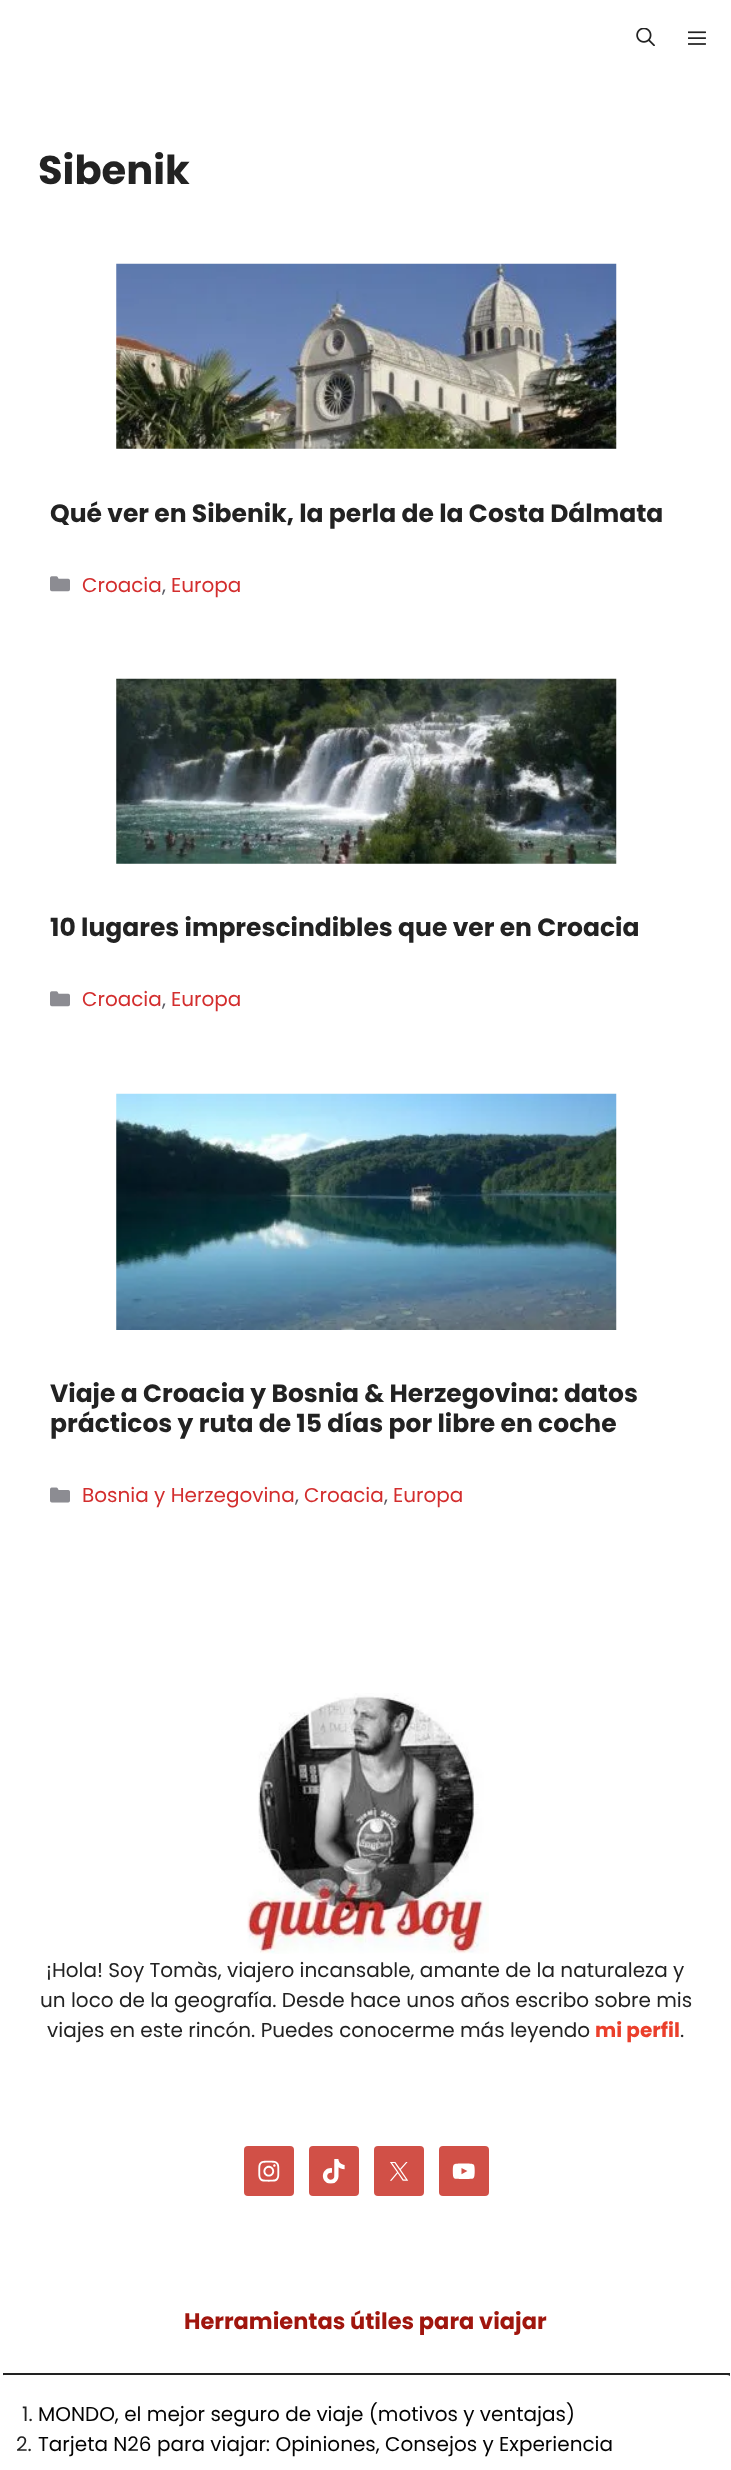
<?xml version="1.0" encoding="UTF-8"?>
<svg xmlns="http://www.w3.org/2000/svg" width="731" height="2470">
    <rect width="100%" height="100%" fill="#FFFFFF"/>
    <image x="636" y="28" width="19" height="18" href="img_01.png"/>
    <image x="688" y="31" width="18" height="14" href="img_02.png"/>
    <text x="38" y="184" font-family="Poppins" font-size="40" font-weight="700" fill="#222222">Sibenik</text>
    <image x="116" y="263" width="501" height="186" href="img_03.png"/>
    <text x="50" y="522" font-family="Poppins" font-size="25" font-weight="700" fill="#222222">Qué ver en Sibenik, la perla de la Costa Dálmata</text>
    <image x="50" y="576" width="20" height="16" href="img_04.png"/>
    <text x="82" y="592" font-family="Poppins" font-size="20" fill="#D32E2E">Croacia</text>
    <text x="162" y="592" font-family="Poppins" font-size="20" fill="#5A5A63">,</text>
    <text x="171" y="592" font-family="Poppins" font-size="20" fill="#D32E2E">Europa</text>
    <image x="116" y="678" width="501" height="186" href="img_05.png"/>
    <text x="50" y="936" font-family="Poppins" font-size="25" font-weight="700" fill="#222222">10 lugares imprescindibles que ver en Croacia</text>
    <image x="50" y="991" width="20" height="16" href="img_04.png"/>
    <text x="82" y="1006" font-family="Poppins" font-size="20" fill="#D32E2E">Croacia</text>
    <text x="162" y="1006" font-family="Poppins" font-size="20" fill="#5A5A63">,</text>
    <text x="171" y="1006" font-family="Poppins" font-size="20" fill="#D32E2E">Europa</text>
    <image x="116" y="1093" width="501" height="237" href="img_06.png"/>
    <text font-family="Poppins" font-size="25" font-weight="700" fill="#222222">
        <tspan x="50" y="1402">Viaje a Croacia y Bosnia &amp; Herzegovina: datos</tspan>
        <tspan x="50" y="1432">prácticos y ruta de 15 días por libre en coche</tspan>
    </text>
    <image x="50" y="1487" width="20" height="16" href="img_07.png"/>
    <text x="82" y="1502" font-family="Poppins" font-size="20" fill="#D32E2E">Bosnia y Herzegovina</text>
    <text x="295" y="1502" font-family="Poppins" font-size="20" fill="#5A5A63">,</text>
    <text x="304" y="1502" font-family="Poppins" font-size="20" fill="#D32E2E">Croacia</text>
    <text x="384" y="1502" font-family="Poppins" font-size="20" fill="#5A5A63">,</text>
    <text x="393" y="1502" font-family="Poppins" font-size="20" fill="#D32E2E">Europa</text>
    <image x="247" y="1693" width="242" height="261" href="img_08.png"/>
    <text x="46" y="1977" font-family="Poppins" font-size="20" fill="#222222">¡Hola! Soy Tomàs, viajero incansable, amante de la naturaleza y</text>
    <text x="40" y="2007" font-family="Poppins" font-size="20" fill="#222222">un loco de la geografía. Desde hace unos años escribo sobre mis</text>
    <text x="47" y="2037" font-family="Poppins" font-size="20" fill="#222222">viajes en este rincón. Puedes conocerme más leyendo</text>
    <text x="595" y="2037" font-family="Poppins" font-size="20" font-weight="700" fill="#EB3F2B">mi perfil</text>
    <text x="680" y="2037" font-family="Poppins" font-size="20" fill="#222222">.</text>
    <rect x="244" y="2146" width="50" height="50" rx="4" fill="#D15047"/>
    <image x="258" y="2160" width="22" height="22" href="img_09.png"/>
    <rect x="309" y="2146" width="50" height="50" rx="4" fill="#D15047"/>
    <image x="322" y="2159" width="23" height="25" href="img_10.png"/>
    <rect x="374" y="2146" width="50" height="50" rx="4" fill="#D15047"/>
    <image x="390" y="2162" width="19" height="19" href="img_11.png"/>
    <rect x="439" y="2146" width="50" height="50" rx="4" fill="#D15047"/>
    <image x="452" y="2163" width="23" height="16" href="img_12.png"/>
    <rect x="3" y="2373" width="727" height="3" fill="#222222"/>
    <text x="184" y="2329" font-family="Poppins" font-size="22.5" font-weight="700" fill="#A0160E">Herramientas útiles para viajar</text>
    <rect x="0" y="2375" width="731" height="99" rx="4" fill="#FFFFFF"/>
    <text x="22" y="2421" font-family="Poppins" font-size="20" fill="#222222">1.</text>
    <text x="38" y="2421" font-family="Poppins" font-size="20" fill="#030303">MONDO, el mejor seguro de viaje (motivos y ventajas)</text>
    <text x="16" y="2451" font-family="Poppins" font-size="20" fill="#222222">2.</text>
    <text x="38" y="2451" font-family="Poppins" font-size="20" fill="#030303">Tarjeta N26 para viajar: Opiniones, Consejos y Experiencia</text>
</svg>
